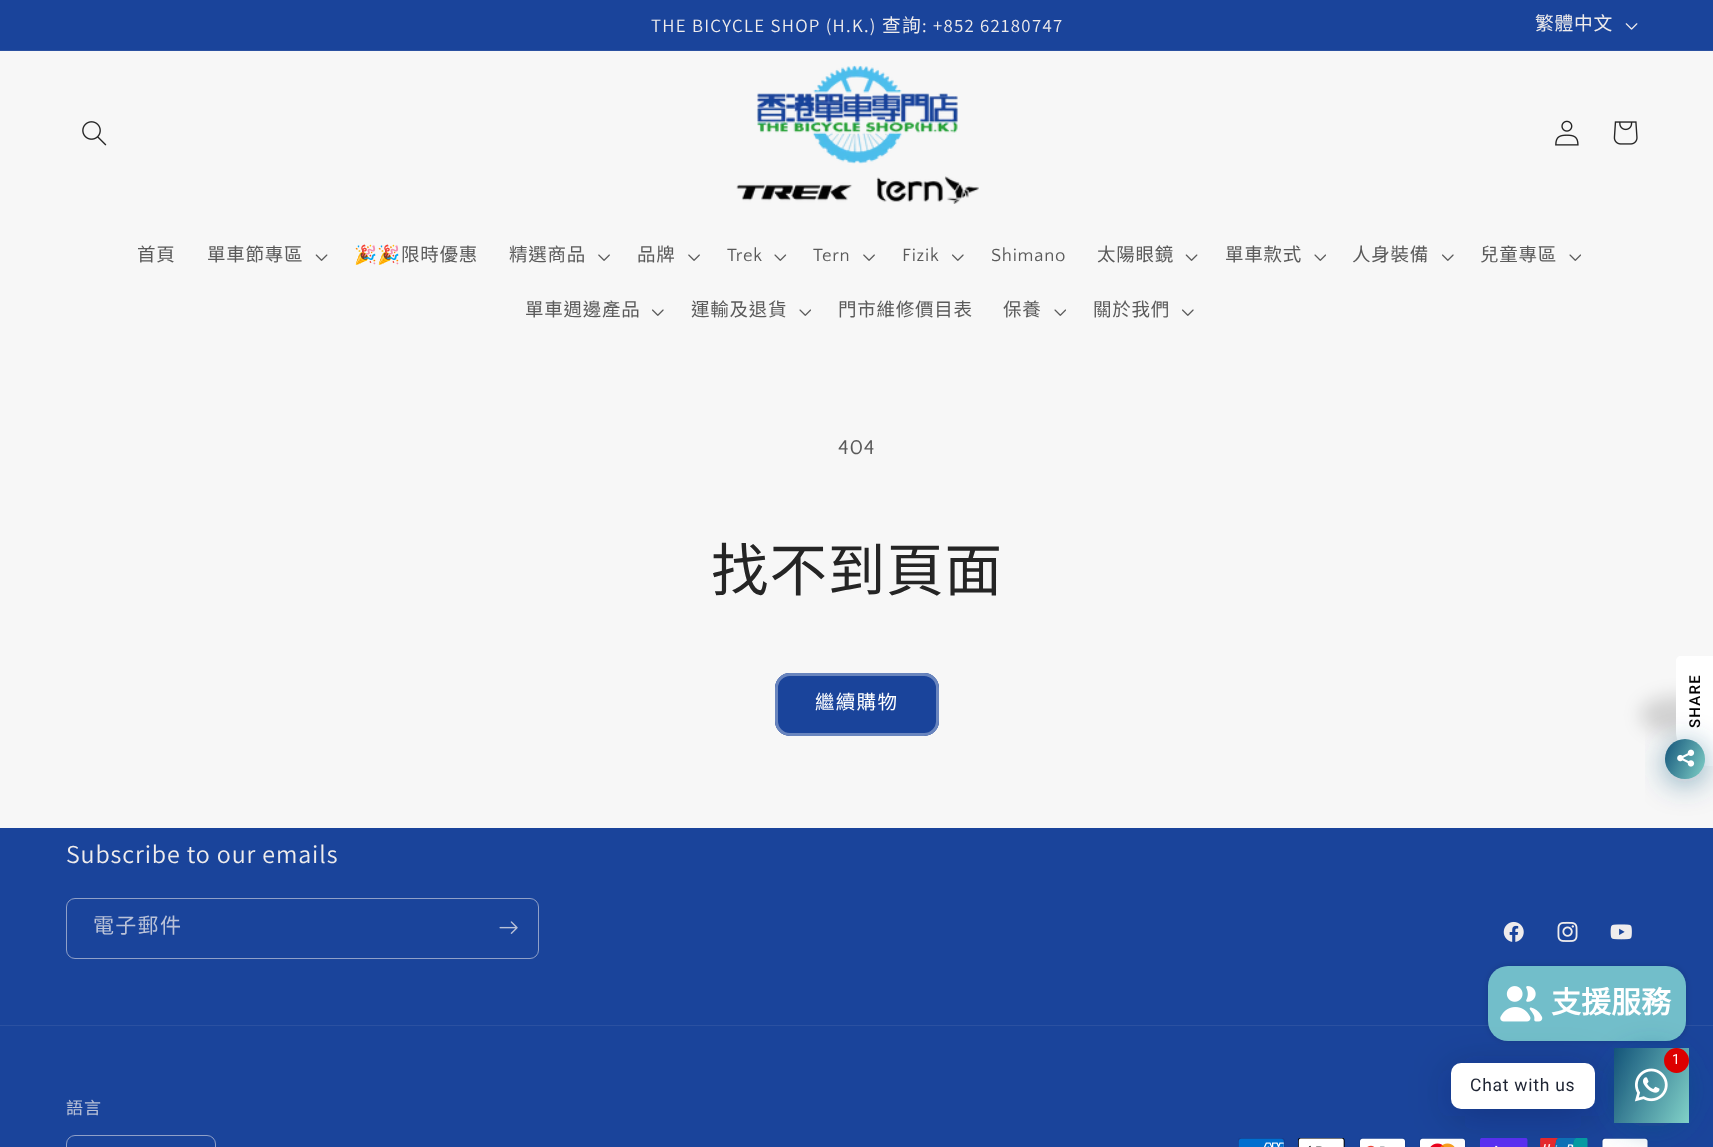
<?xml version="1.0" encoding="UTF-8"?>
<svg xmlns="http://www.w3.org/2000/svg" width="1713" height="1147">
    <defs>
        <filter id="blur1" x="-50%" y="-200%" width="200%" height="500%"><feGaussianBlur stdDeviation="9"/></filter>
        <filter id="blur2" x="-50%" y="-200%" width="200%" height="500%"><feGaussianBlur stdDeviation="15"/></filter>
        <linearGradient id="g1" gradientUnits="userSpaceOnUse" x1="1661" y1="748" x2="1709" y2="770"><stop offset="0" stop-color="#13547A"/><stop offset="1" stop-color="#80D0C7"/></linearGradient>
        <filter id="blur3" x="-50%" y="-200%" width="200%" height="500%"><feGaussianBlur stdDeviation="3"/></filter>
        <linearGradient id="g2" gradientUnits="userSpaceOnUse" x1="1606" y1="1064" x2="1696" y2="1106"><stop offset="0" stop-color="#13547A"/><stop offset="1" stop-color="#80D0C7"/></linearGradient>
        <filter id="blur4" x="-50%" y="-200%" width="200%" height="500%"><feGaussianBlur stdDeviation="20"/></filter>
    </defs>
    <rect width="100%" height="100%" fill="#F7F7F7"/>
    <rect x="0" y="0" width="1713" height="50" fill="#1A449B"/>
    <rect x="0" y="50" width="1713" height="1" fill="#2B51A1"/>
    <text x="651" y="32" font-family="Assistant" font-size="18.75" letter-spacing="1.3" fill="#EFECEC">THE BICYCLE SHOP (H.K.)</text>
    <text x="882" y="32" font-family="Noto Sans CJK TC" font-size="18.75" letter-spacing="1.3" fill="#EFECEC">查詢</text>
    <text x="922" y="32" font-family="Assistant" font-size="18.75" letter-spacing="1.3" fill="#EFECEC">: +852 62180747</text>
    <text x="1535" y="30" font-family="Noto Sans CJK TC" font-size="18.75" letter-spacing="0.75" fill="#EFECEC">繁體中文</text>
    <image x="1625" y="23" width="13" height="7" href="img_01.png"/>
    <image x="82" y="121" width="25" height="25" href="img_02.png"/>
    <image x="736" y="65" width="243" height="139" href="img_03.png"/>
    <image x="1555" y="120" width="24" height="26" href="img_04.png"/>
    <image x="1613" y="121" width="25" height="24" href="img_05.png"/>
    <text x="137" y="261" font-family="Noto Sans CJK TC" font-size="18.5" letter-spacing="0.75" fill="#5A5A5A">首頁</text>
    <text x="207" y="261" font-family="Noto Sans CJK TC" font-size="18.5" letter-spacing="0.75" fill="#5A5A5A">單車節專區</text>
    <image x="315" y="254" width="13" height="7" href="img_06.png"/>
    <text x="354" y="261" font-family="Noto Color Emoji" font-size="18.5" letter-spacing="0.75" fill="#5A5A5A">🎉🎉</text>
    <text x="401" y="261" font-family="Noto Sans CJK TC" font-size="18.5" letter-spacing="0.75" fill="#5A5A5A">限時優惠</text>
    <text x="509" y="261" font-family="Noto Sans CJK TC" font-size="18.5" letter-spacing="0.75" fill="#5A5A5A">精選商品</text>
    <image x="598" y="254" width="12" height="7" href="img_07.png"/>
    <text x="637" y="261" font-family="Noto Sans CJK TC" font-size="18.5" letter-spacing="0.75" fill="#5A5A5A">品牌</text>
    <image x="688" y="254" width="12" height="7" href="img_07.png"/>
    <text x="727" y="261" font-family="Quattrocento Sans" font-size="18.5" letter-spacing="0.75" fill="#5A5A5A">Trek</text>
    <image x="774" y="254" width="13" height="7" href="img_08.png"/>
    <text x="813" y="261" font-family="Quattrocento Sans" font-size="18.5" letter-spacing="0.75" fill="#5A5A5A">Tern</text>
    <image x="863" y="254" width="12" height="7" href="img_07.png"/>
    <text x="902" y="261" font-family="Quattrocento Sans" font-size="18.5" letter-spacing="0.75" fill="#5A5A5A">Fizik</text>
    <image x="952" y="254" width="12" height="7" href="img_09.png"/>
    <text x="991" y="261" font-family="Quattrocento Sans" font-size="18.5" letter-spacing="0.75" fill="#5A5A5A">Shimano</text>
    <text x="1097" y="261" font-family="Noto Sans CJK TC" font-size="18.5" letter-spacing="0.75" fill="#5A5A5A">太陽眼鏡</text>
    <image x="1185" y="254" width="13" height="7" href="img_06.png"/>
    <text x="1225" y="261" font-family="Noto Sans CJK TC" font-size="18.5" letter-spacing="0.75" fill="#5A5A5A">單車款式</text>
    <image x="1314" y="254" width="12" height="7" href="img_10.png"/>
    <text x="1352" y="261" font-family="Noto Sans CJK TC" font-size="18.5" letter-spacing="0.75" fill="#5A5A5A">人身裝備</text>
    <image x="1442" y="254" width="12" height="7" href="img_09.png"/>
    <text x="1480" y="261" font-family="Noto Sans CJK TC" font-size="18.5" letter-spacing="0.75" fill="#5A5A5A">兒童專區</text>
    <image x="1569" y="254" width="12" height="7" href="img_10.png"/>
    <text x="525" y="316" font-family="Noto Sans CJK TC" font-size="18.5" letter-spacing="0.75" fill="#5A5A5A">單車週邊產品</text>
    <image x="652" y="309" width="12" height="7" href="img_09.png"/>
    <text x="691" y="316" font-family="Noto Sans CJK TC" font-size="18.5" letter-spacing="0.75" fill="#5A5A5A">運輸及退貨</text>
    <image x="799" y="309" width="12" height="7" href="img_10.png"/>
    <text x="838" y="316" font-family="Noto Sans CJK TC" font-size="18.5" letter-spacing="0.75" fill="#5A5A5A">門市維修價目表</text>
    <text x="1003" y="316" font-family="Noto Sans CJK TC" font-size="18.5" letter-spacing="0.75" fill="#5A5A5A">保養</text>
    <image x="1054" y="309" width="12" height="7" href="img_10.png"/>
    <text x="1093" y="316" font-family="Noto Sans CJK TC" font-size="18.5" letter-spacing="0.75" fill="#5A5A5A">關於我們</text>
    <image x="1182" y="309" width="12" height="7" href="img_09.png"/>
    <text x="838" y="454" font-family="Quattrocento Sans" font-size="21" letter-spacing="0.75" fill="#5A5A5A">404</text>
    <text x="711" y="591" font-family="Noto Sans CJK TC" font-size="57.5" letter-spacing="0.9" fill="#252525">找不到頁面</text>
    <rect x="775" y="673" width="164" height="63" rx="15" fill="#1A449B"/>
    <rect x="776.5" y="674.5" width="161" height="60" rx="13.5" fill="none" stroke="#1A449B" stroke-width="3"/>
    <rect x="776.5" y="674.5" width="161" height="60" rx="13.5" fill="none" stroke="#FFFFFF" stroke-opacity="0.35" stroke-width="3"/>
    <text x="815" y="709" font-family="Noto Sans CJK TC" font-size="19.5" letter-spacing="1.3" fill="#FFFFFF">繼續購物</text>
    <rect x="0" y="828" width="1713" height="319" fill="#1A449B"/>
    <text x="66" y="863" font-family="Assistant" font-size="25.9" letter-spacing="0.9" fill="#EFECEC">Subscribe to our emails</text>
    <rect x="66.5" y="898.5" width="472" height="60" rx="8.5" fill="none" stroke="#8FA0C8"/>
    <text x="93" y="933" font-family="Noto Sans CJK TC" font-size="21" letter-spacing="1.3" fill="#BAC2D8">電子郵件</text>
    <image x="499" y="921" width="19" height="13" href="img_11.png"/>
    <image x="1503" y="921" width="21" height="21" href="img_12.png"/>
    <image x="1557" y="921" width="21" height="21" href="img_13.png"/>
    <image x="1610" y="924" width="22" height="16" href="img_14.png"/>
    <rect x="0" y="1025" width="1713" height="1" fill="#2B51A1"/>
    <text x="66" y="1114" font-family="Noto Sans CJK TC" font-size="17" letter-spacing="1" fill="#BAC2D8">語言</text>
    <rect x="66.5" y="1135.5" width="149" height="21" rx="8.5" fill="none" stroke="#8FA0C8"/>
    <image x="1238" y="1138" width="47" height="9" href="img_15.png"/>
    <image x="1298" y="1138" width="47" height="9" href="img_16.png"/>
    <image x="1359" y="1138" width="47" height="9" href="img_17.png"/>
    <image x="1419" y="1138" width="47" height="9" href="img_18.png"/>
    <image x="1480" y="1138" width="48" height="9" href="img_19.png"/>
    <image x="1540" y="1138" width="48" height="9" href="img_20.png"/>
    <image x="1601" y="1138" width="48" height="9" href="img_21.png"/>
    <rect x="1640" y="696" width="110" height="38" rx="35" fill="#000000" fill-opacity="0.15" filter="url(#blur1)"/>
    <path d="M 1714 656 V 766 H 1711 C 1692 766 1676 750 1676 731 V 661 C 1676 658 1678 656 1681 656 Z" fill="#FFFFFF"/>
    <text x="1700" y="728" transform="rotate(-90 1700 728)" font-family="Roboto" font-size="15" font-weight="500" letter-spacing="1.25" fill="#000000">SHARE</text>
    <rect x="1665" y="744" width="40" height="40" rx="20" fill="#13547A" fill-opacity="0.5" filter="url(#blur2)"/>
    <circle cx="1685" cy="759" r="20" fill="url(#g1)"/>
    <image x="1677" y="749" width="18" height="18" href="img_22.png"/>
    <rect x="1488" y="966" width="198" height="75" rx="20" fill="#000000" fill-opacity="0.15" filter="url(#blur3)"/>
    <rect x="1488" y="966" width="198" height="75" rx="20" fill="#72BECA"/>
    <rect x="1614" y="1053" width="75" height="75" rx="37.5" fill="#13547A" fill-opacity="0.5" filter="url(#blur2)"/>
    <rect x="1614" y="1048" width="75" height="75" fill="url(#g2)"/>
    <image x="1500" y="986" width="43" height="36" href="img_24.png"/>
    <rect x="1451" y="1070" width="144" height="46" rx="10" fill="#00122E" fill-opacity="0.24" filter="url(#blur4)"/>
    <image x="1634" y="1068" width="34" height="34" href="img_23.png"/>
    <circle cx="1676.5" cy="1060.5" r="12.5" fill="#DD0000"/>
    <text x="1672" y="1064" font-family="Roboto" font-size="14" letter-spacing="0.75" fill="#FFFFFF">1</text>
    <rect x="1451" y="1063" width="144" height="46" rx="10" fill="#FFFFFF"/>
    <text x="1470" y="1091" font-family="Roboto" font-size="17.5" letter-spacing="0.75" fill="#1E2433">Chat with us</text>
    <text x="1551" y="1013" font-family="Noto Sans CJK TC" font-size="30" font-weight="700" fill="#FFFFFF">支援服務</text>
</svg>
